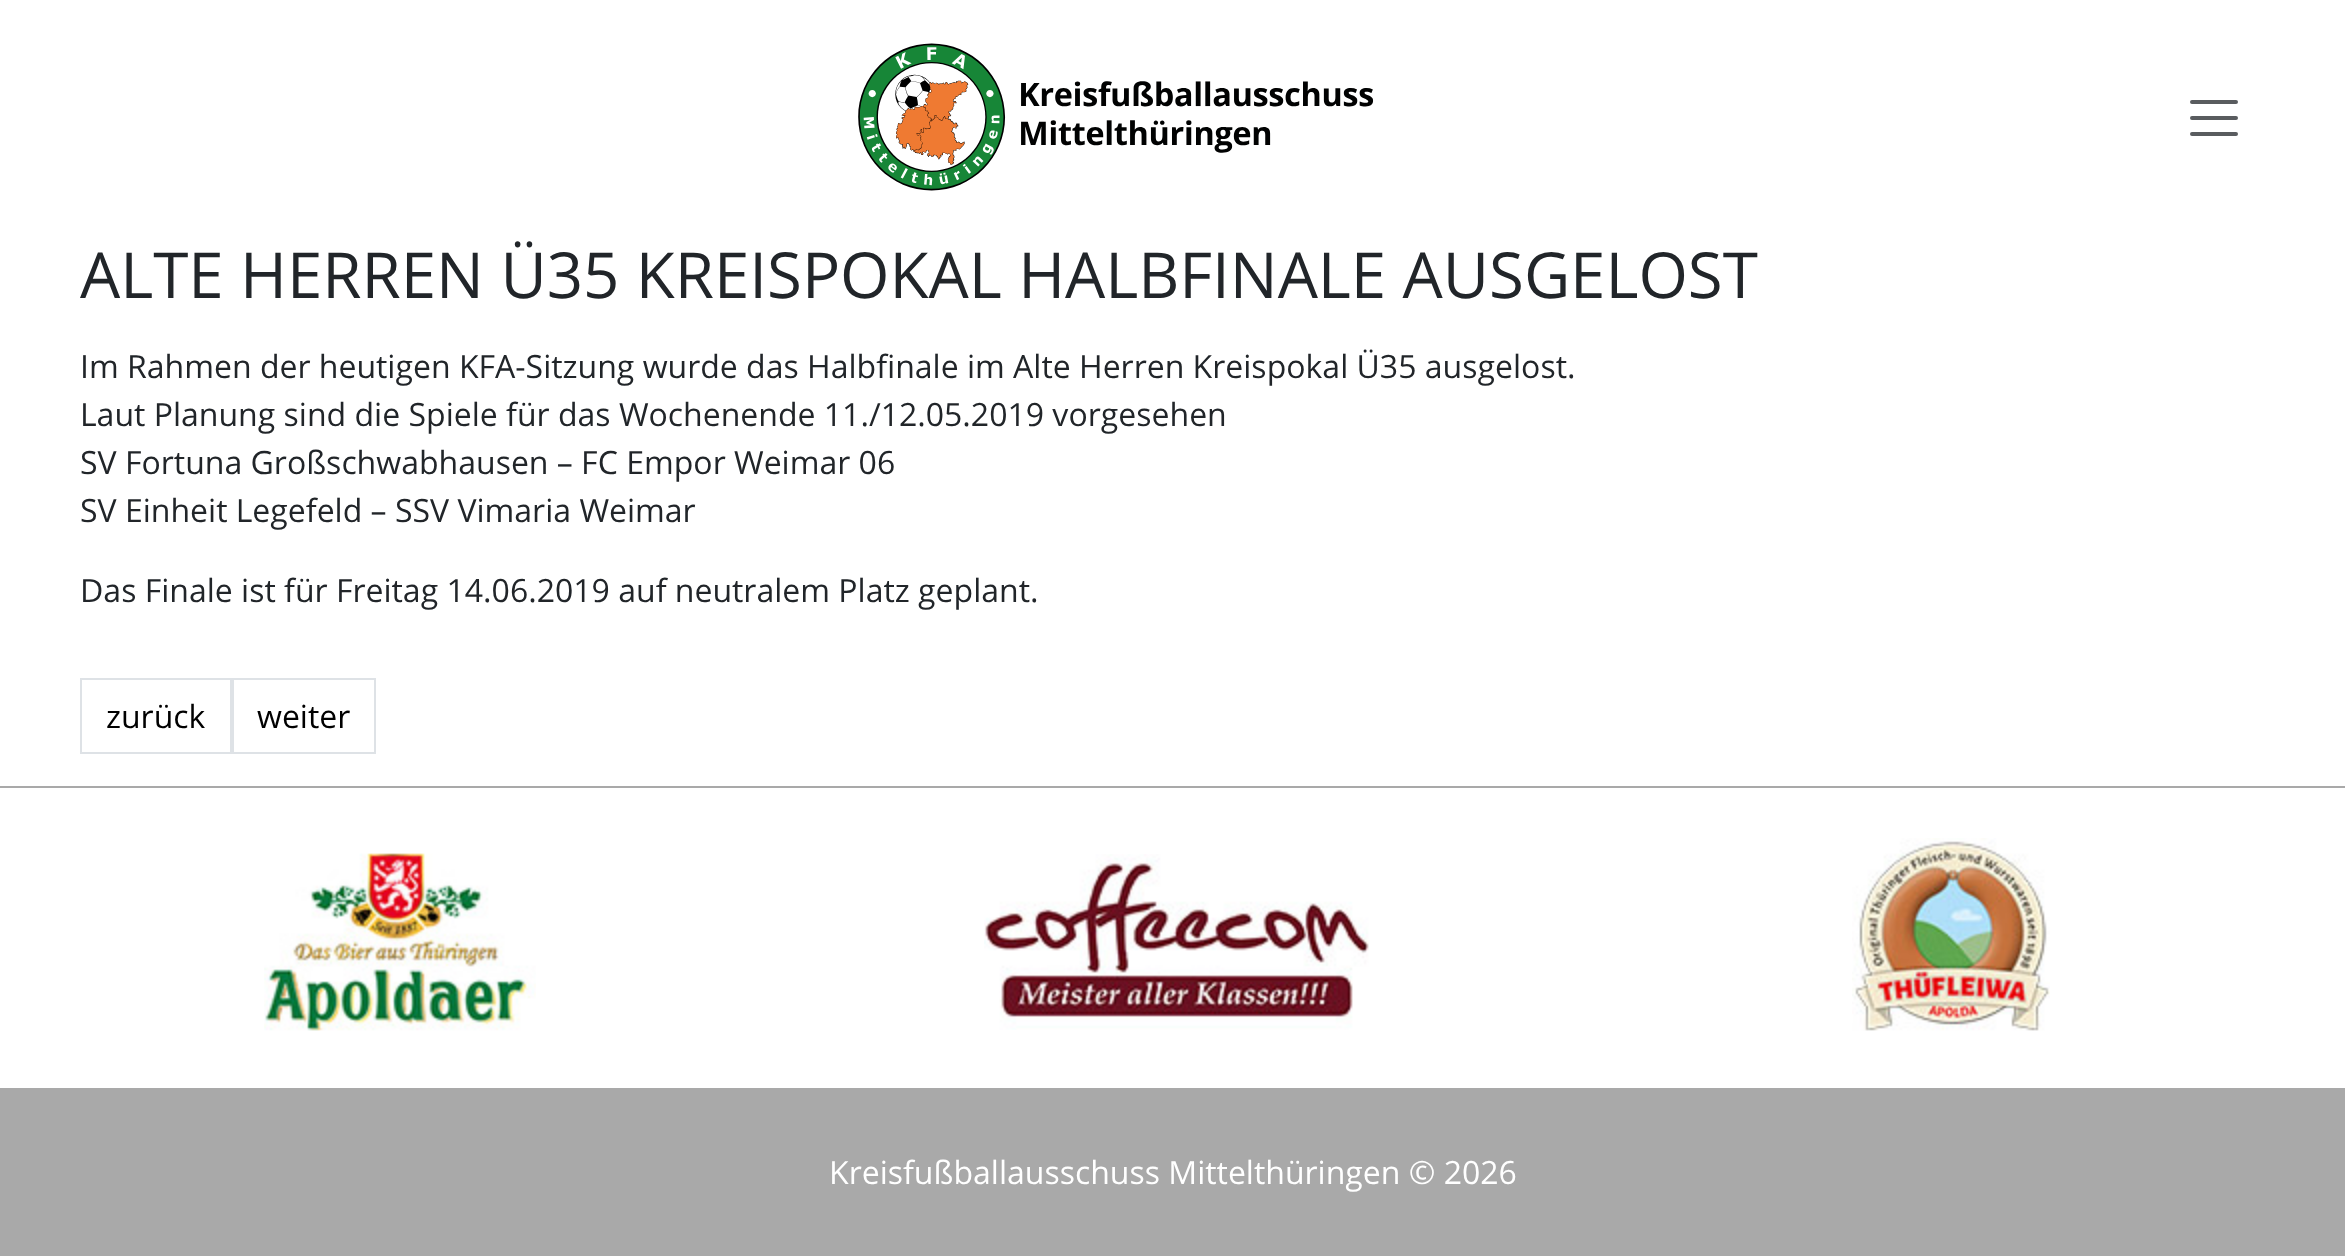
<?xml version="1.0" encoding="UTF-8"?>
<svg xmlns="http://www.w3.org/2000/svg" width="2345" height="1256">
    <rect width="100%" height="100%" fill="#A9A9A9"/>
    <rect x="0" y="0" width="2345" height="786" fill="#FFFFFF"/>
    <image x="858" y="43" width="516" height="148" href="img_01.png"/>
    <path d="M 2192 102 H 2236 M 2192 118 H 2236 M 2192 134 H 2236" fill="none" stroke="#595C5F" stroke-width="4" stroke-linecap="round"/>
    <text x="80" y="298" font-family="Open Sans" font-size="63.5" fill="#212529">ALTE HERREN Ü35 KREISPOKAL HALBFINALE AUSGELOST</text>
    <text font-family="Open Sans" font-size="32" fill="#212529">
        <tspan x="80" y="378">Im Rahmen der heutigen KFA-Sitzung wurde das Halbfinale im Alte Herren Kreispokal Ü35 ausgelost.</tspan>
        <tspan x="80" y="426">Laut Planung sind die Spiele für das Wochenende 11./12.05.2019 vorgesehen</tspan>
        <tspan x="80" y="474">SV Fortuna Großschwabhausen – FC Empor Weimar 06</tspan>
        <tspan x="80" y="522">SV Einheit Legefeld – SSV Vimaria Weimar</tspan>
    </text>
    <text x="80" y="602" font-family="Open Sans" font-size="32" fill="#212529">Das Finale ist für Freitag 14.06.2019 auf neutralem Platz geplant.</text>
    <rect x="81" y="679" width="150" height="74" fill="none" stroke="#DEE2E6" stroke-width="2"/>
    <text x="106" y="728" font-family="Open Sans" font-size="32" fill="#000000">zurück</text>
    <rect x="233" y="679" width="142" height="74" fill="none" stroke="#DEE2E6" stroke-width="2"/>
    <text x="257" y="728" font-family="Open Sans" font-size="32" fill="#000000">weiter</text>
    <rect x="0" y="788" width="2345" height="300" fill="#FFFFFF"/>
    <image x="264" y="853" width="272" height="178" href="img_02.png"/>
    <image x="984" y="854" width="385" height="176" href="img_03.png"/>
    <image x="1852" y="838" width="198" height="193" href="img_04.png"/>
    <text x="829" y="1184" font-family="Open Sans" font-size="32" fill="#FFFFFF">Kreisfußballausschuss Mittelthüringen © 2026</text>
</svg>
